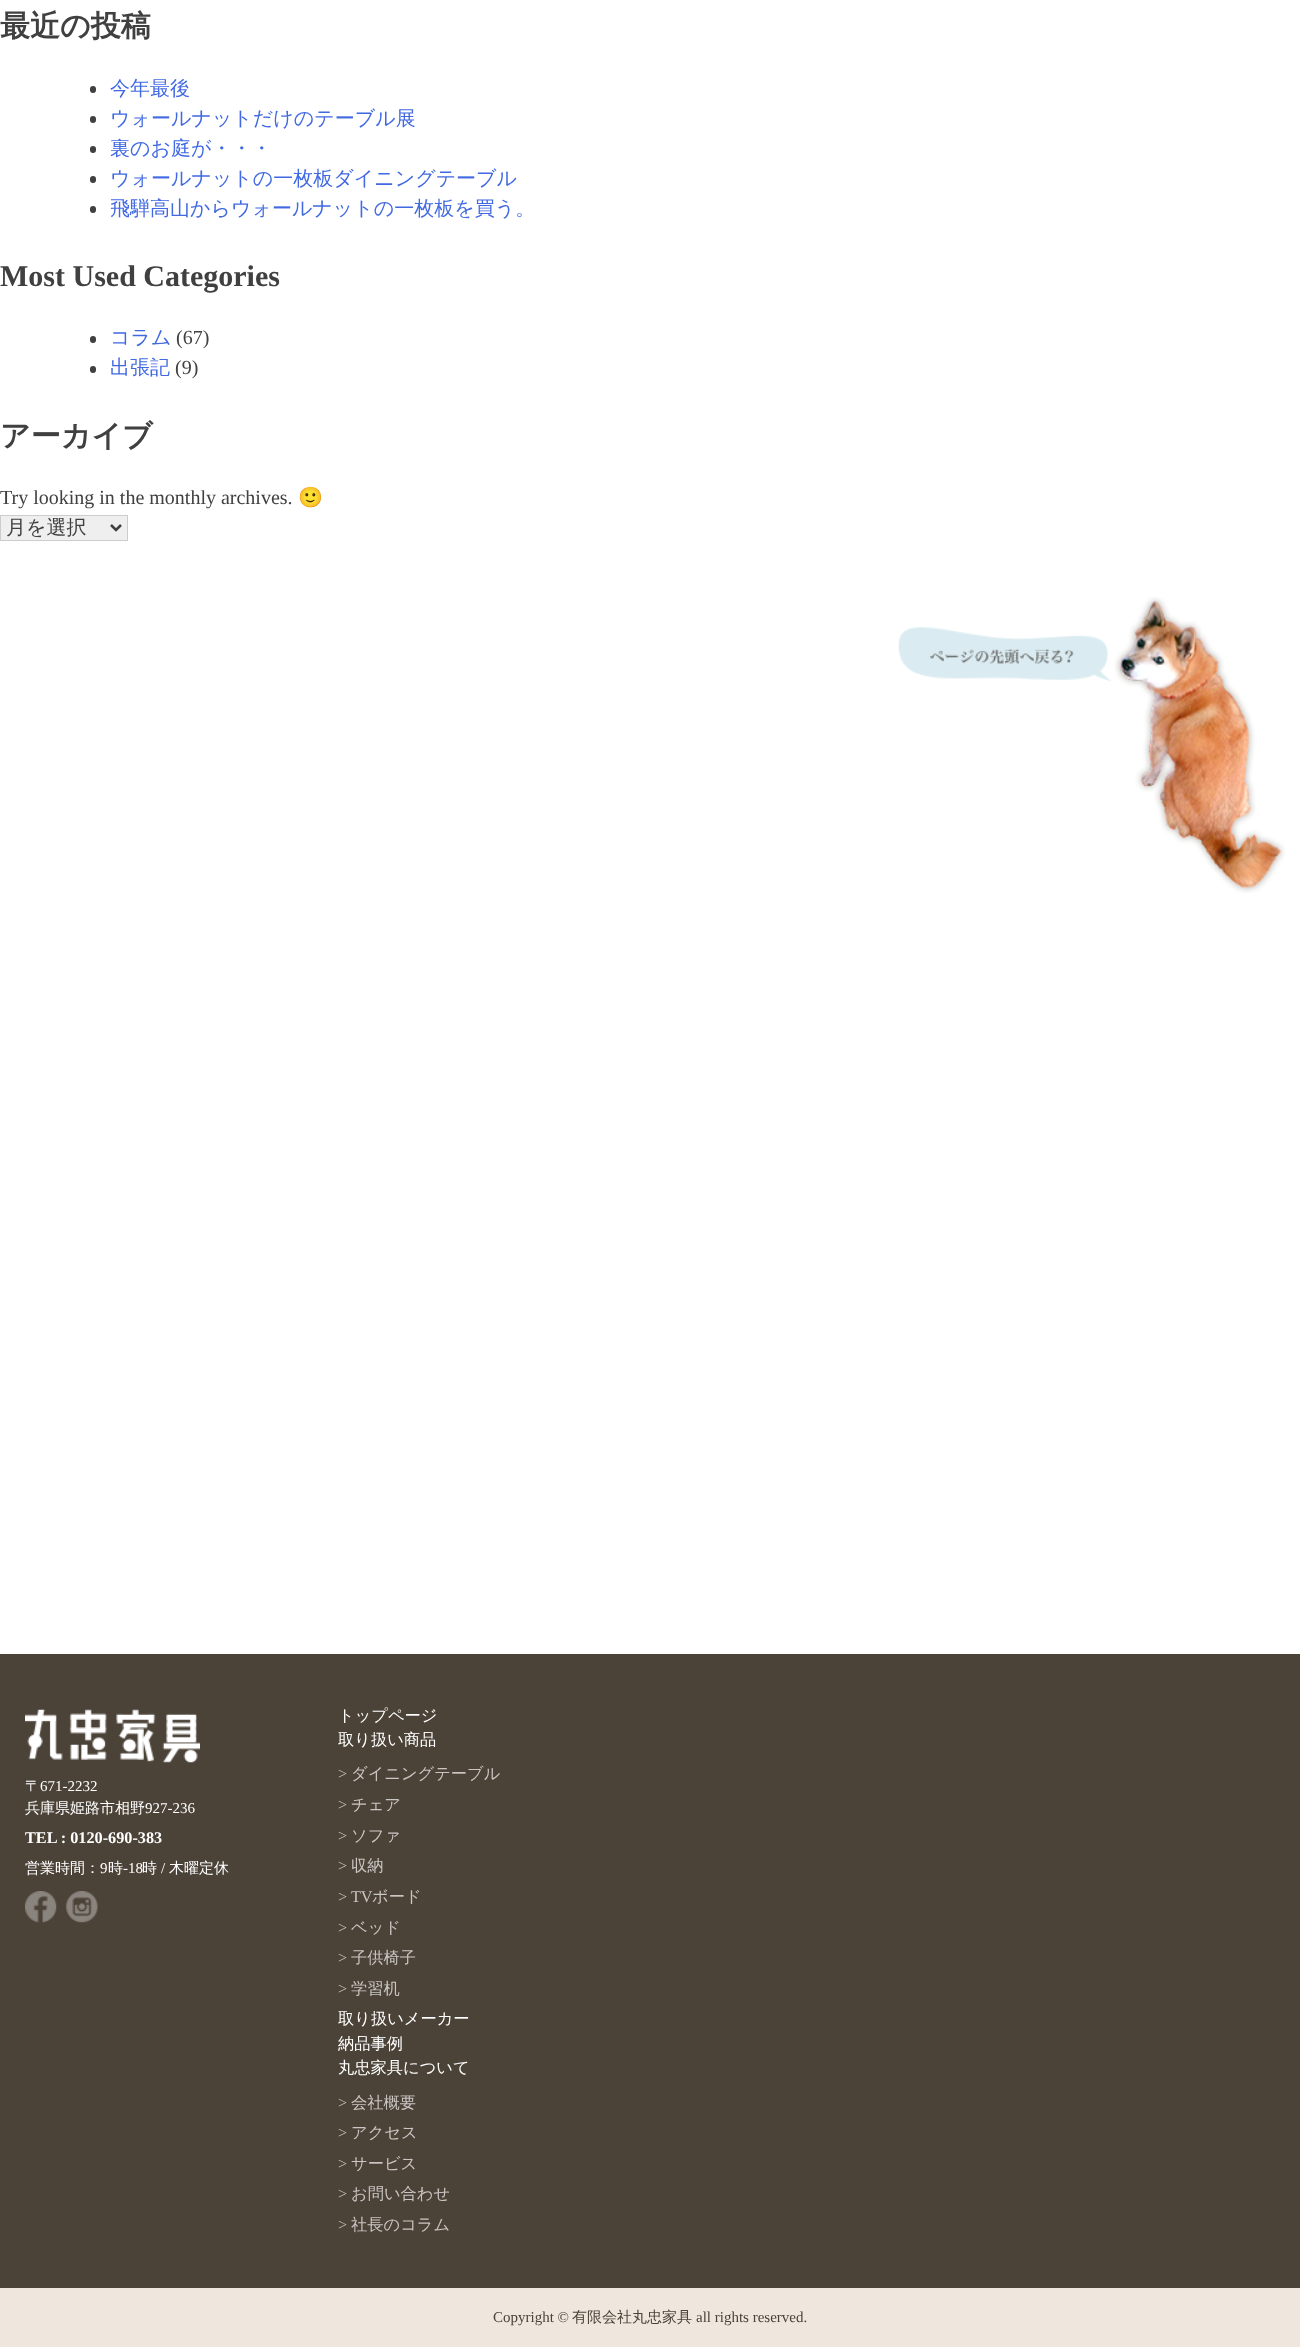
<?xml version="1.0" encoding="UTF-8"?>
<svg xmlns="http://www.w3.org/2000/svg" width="1300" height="2347">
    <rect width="100%" height="100%" fill="#FFFFFF"/>
    <text x="0" y="36" font-family="WenQuanYi Zen Hei" font-size="30" font-weight="700" fill="#404040">最近の投稿</text>
    <rect x="90" y="86" width="6" height="7" rx="3" fill="#404040"/>
    <text x="110" y="95" font-family="WenQuanYi Zen Hei" font-size="20" font-weight="500" fill="#4169E1">今年最後</text>
    <rect x="90" y="116" width="6" height="7" rx="3" fill="#404040"/>
    <text x="110" y="125" font-family="WenQuanYi Zen Hei" font-size="20" font-weight="500" fill="#4169E1">ウォールナットだけのテーブル展</text>
    <rect x="90" y="146" width="6" height="7" rx="3" fill="#404040"/>
    <text x="110" y="155" font-family="WenQuanYi Zen Hei" font-size="20" font-weight="500" fill="#4169E1">裏のお庭が・・・</text>
    <rect x="90" y="176" width="6" height="7" rx="3" fill="#404040"/>
    <text x="110" y="185" font-family="WenQuanYi Zen Hei" font-size="20" font-weight="500" fill="#4169E1">ウォールナットの一枚板ダイニングテーブル</text>
    <rect x="90" y="206" width="6" height="7" rx="3" fill="#404040"/>
    <text x="110" y="215" font-family="WenQuanYi Zen Hei" font-size="20" font-weight="500" fill="#4169E1">飛騨高山からウォールナットの一枚板を買う。</text>
    <text x="0" y="286" font-family="Liberation Serif" font-size="30" font-weight="700" fill="#404040">Most Used Categories</text>
    <rect x="90" y="336" width="6" height="7" rx="3" fill="#404040"/>
    <text x="110" y="344" font-family="WenQuanYi Zen Hei" font-size="20" font-weight="500" fill="#4169E1">コラム</text>
    <text x="176" y="344" font-family="Liberation Serif" font-size="20" fill="#404040">(67)</text>
    <rect x="90" y="366" width="6" height="7" rx="3" fill="#404040"/>
    <text x="110" y="374" font-family="WenQuanYi Zen Hei" font-size="20" font-weight="500" fill="#4169E1">出張記</text>
    <text x="175" y="374" font-family="Liberation Serif" font-size="20" fill="#404040">(9)</text>
    <text x="0" y="446" font-family="WenQuanYi Zen Hei" font-size="30" font-weight="700" fill="#404040">アーカイブ</text>
    <text x="0" y="504" font-family="Liberation Serif" font-size="20" fill="#404040">Try looking in the monthly archives.</text>
    <text x="298" y="504" font-family="Noto Color Emoji" font-size="20" fill="#404040">🙂</text>
    <rect x="0.5" y="515.5" width="127" height="25" fill="#EFEFEF" stroke="#CCCCCC"/>
    <path d="M 111 525 L 116 530 L 121 525" fill="none" stroke="#404040" stroke-width="2.5"/>
    <text x="6" y="534" font-family="WenQuanYi Zen Hei" font-size="20" font-weight="500" fill="#404040">月を選択</text>
    <image x="898" y="597" width="387" height="296" href="img_01.png"/>
    <rect x="0" y="1654" width="1300" height="634" fill="#4B4238"/>
    <image x="25" y="1709" width="175" height="54" href="img_02.png"/>
    <text x="25" y="1791" font-family="WenQuanYi Zen Hei" font-size="15" font-weight="500" fill="#FFFFFF">〒</text>
    <text x="40" y="1791" font-family="Liberation Serif" font-size="15" fill="#FFFFFF">671-2232</text>
    <text x="25" y="1813" font-family="WenQuanYi Zen Hei" font-size="15" font-weight="500" fill="#FFFFFF">兵庫県姫路市相野</text>
    <text x="145" y="1813" font-family="Liberation Serif" font-size="15" fill="#FFFFFF">927-236</text>
    <text x="25" y="1843" font-family="Liberation Serif" font-size="16.25" font-weight="700" fill="#FFFFFF">TEL : 0120-690-383</text>
    <text x="25" y="1873" font-family="WenQuanYi Zen Hei" font-size="15" font-weight="500" fill="#FFFFFF">営業時間：</text>
    <text x="100" y="1873" font-family="Liberation Serif" font-size="15" fill="#FFFFFF">9</text>
    <text x="108" y="1873" font-family="WenQuanYi Zen Hei" font-size="15" font-weight="500" fill="#FFFFFF">時</text>
    <text x="123" y="1873" font-family="Liberation Serif" font-size="15" fill="#FFFFFF">-18</text>
    <text x="142" y="1873" font-family="WenQuanYi Zen Hei" font-size="15" font-weight="500" fill="#FFFFFF">時</text>
    <text x="161" y="1873" font-family="Liberation Serif" font-size="15" fill="#FFFFFF">/</text>
    <text x="169" y="1873" font-family="WenQuanYi Zen Hei" font-size="15" font-weight="500" fill="#FFFFFF">木曜定休</text>
    <image x="25" y="1891" width="32" height="32" href="img_03.png"/>
    <image x="66" y="1891" width="32" height="32" href="img_04.png"/>
    <text font-family="WenQuanYi Zen Hei" font-size="16.25" font-weight="500" fill="#FFFFFF">
        <tspan x="338" y="1721">トップページ</tspan>
        <tspan x="338" y="1745">取り扱い商品</tspan>
    </text>
    <text x="338" y="1779" font-family="Liberation Serif" font-size="16.25" fill="#C9C6C3">&gt;</text>
    <text x="351" y="1779" font-family="WenQuanYi Zen Hei" font-size="16.25" font-weight="500" fill="#C9C6C3">ダイニングテーブル</text>
    <text x="338" y="1810" font-family="Liberation Serif" font-size="16.25" fill="#C9C6C3">&gt;</text>
    <text x="351" y="1810" font-family="WenQuanYi Zen Hei" font-size="16.25" font-weight="500" fill="#C9C6C3">チェア</text>
    <text x="338" y="1841" font-family="Liberation Serif" font-size="16.25" fill="#C9C6C3">&gt;</text>
    <text x="351" y="1841" font-family="WenQuanYi Zen Hei" font-size="16.25" font-weight="500" fill="#C9C6C3">ソファ</text>
    <text x="338" y="1871" font-family="Liberation Serif" font-size="16.25" fill="#C9C6C3">&gt;</text>
    <text x="351" y="1871" font-family="WenQuanYi Zen Hei" font-size="16.25" font-weight="500" fill="#C9C6C3">収納</text>
    <text x="338" y="1902" font-family="Liberation Serif" font-size="16.25" fill="#C9C6C3">&gt; TV</text>
    <text x="372" y="1902" font-family="WenQuanYi Zen Hei" font-size="16.25" font-weight="500" fill="#C9C6C3">ボード</text>
    <text x="338" y="1933" font-family="Liberation Serif" font-size="16.25" fill="#C9C6C3">&gt;</text>
    <text x="351" y="1933" font-family="WenQuanYi Zen Hei" font-size="16.25" font-weight="500" fill="#C9C6C3">ベッド</text>
    <text x="338" y="1963" font-family="Liberation Serif" font-size="16.25" fill="#C9C6C3">&gt;</text>
    <text x="351" y="1963" font-family="WenQuanYi Zen Hei" font-size="16.25" font-weight="500" fill="#C9C6C3">子供椅子</text>
    <text x="338" y="1994" font-family="Liberation Serif" font-size="16.25" fill="#C9C6C3">&gt;</text>
    <text x="351" y="1994" font-family="WenQuanYi Zen Hei" font-size="16.25" font-weight="500" fill="#C9C6C3">学習机</text>
    <text font-family="WenQuanYi Zen Hei" font-size="16.25" font-weight="500" fill="#FFFFFF">
        <tspan x="338" y="2024">取り扱いメーカー</tspan>
        <tspan x="338" y="2049">納品事例</tspan>
        <tspan x="338" y="2073">丸忠家具について</tspan>
    </text>
    <text x="338" y="2108" font-family="Liberation Serif" font-size="16.25" fill="#C9C6C3">&gt;</text>
    <text x="351" y="2108" font-family="WenQuanYi Zen Hei" font-size="16.25" font-weight="500" fill="#C9C6C3">会社概要</text>
    <text x="338" y="2138" font-family="Liberation Serif" font-size="16.25" fill="#C9C6C3">&gt;</text>
    <text x="351" y="2138" font-family="WenQuanYi Zen Hei" font-size="16.25" font-weight="500" fill="#C9C6C3">アクセス</text>
    <text x="338" y="2169" font-family="Liberation Serif" font-size="16.25" fill="#C9C6C3">&gt;</text>
    <text x="351" y="2169" font-family="WenQuanYi Zen Hei" font-size="16.25" font-weight="500" fill="#C9C6C3">サービス</text>
    <text x="338" y="2199" font-family="Liberation Serif" font-size="16.25" fill="#C9C6C3">&gt;</text>
    <text x="351" y="2199" font-family="WenQuanYi Zen Hei" font-size="16.25" font-weight="500" fill="#C9C6C3">お問い合わせ</text>
    <text x="338" y="2230" font-family="Liberation Serif" font-size="16.25" fill="#C9C6C3">&gt;</text>
    <text x="351" y="2230" font-family="WenQuanYi Zen Hei" font-size="16.25" font-weight="500" fill="#C9C6C3">社長のコラム</text>
    <rect x="0" y="2288" width="1300" height="59" fill="#EFE7DD"/>
    <text x="493" y="2322" font-family="Liberation Serif" font-size="15" fill="#4B4238">Copyright ©</text>
    <text x="572" y="2322" font-family="WenQuanYi Zen Hei" font-size="15" font-weight="500" fill="#4B4238">有限会社丸忠家具</text>
    <text x="696" y="2322" font-family="Liberation Serif" font-size="15" fill="#4B4238">all rights reserved.</text>
</svg>
